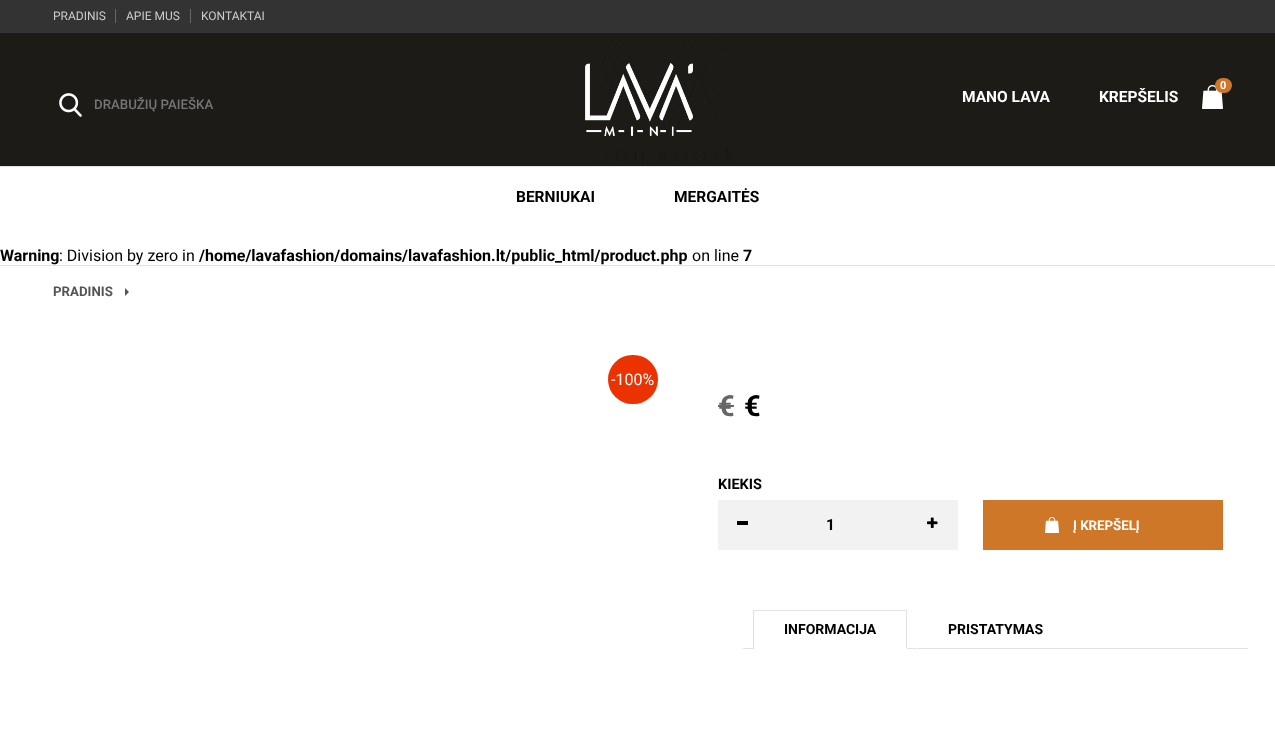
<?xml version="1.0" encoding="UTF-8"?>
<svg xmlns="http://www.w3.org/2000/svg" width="1275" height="745">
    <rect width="100%" height="100%" fill="#FFFFFF"/>
    <rect x="0" y="0" width="1275" height="33" fill="#333333"/>
    <rect x="115" y="9" width="1" height="14" fill="#666666"/>
    <text x="53" y="20" font-family="Roboto" font-size="12" fill="#CCCCCC">PRADINIS</text>
    <rect x="190" y="9" width="1" height="14" fill="#666666"/>
    <text x="126" y="20" font-family="Roboto" font-size="12" fill="#CCCCCC">APIE MUS</text>
    <text x="201" y="20" font-family="Roboto" font-size="12" fill="#CCCCCC">KONTAKTAI</text>
    <rect x="0" y="33" width="1275" height="133" fill="#1C1B17"/>
    <image x="596" y="34" width="136" height="128" href="img_01.png"/>
    <rect x="0" y="166" width="1275" height="1" fill="#E2E2E2"/>
    <image x="585" y="63" width="108" height="73" href="img_02.png"/>
    <text x="962" y="102" font-family="Roboto" font-size="15.5" font-weight="700" fill="#FFFFFF">MANO LAVA</text>
    <image x="1202" y="85" width="21" height="24" href="img_03.png"/>
    <rect x="1215" y="78" width="17" height="15" rx="7.5" fill="#CF7729"/>
    <text x="1220" y="89" font-family="Roboto" font-size="11" font-weight="700" fill="#FFFFFF">0</text>
    <text x="1099" y="102" font-family="Roboto" font-size="15.5" font-weight="700" fill="#FFFFFF">KREPŠELIS</text>
    <image x="59" y="93" width="23" height="24" href="img_04.png"/>
    <text x="94" y="109" font-family="Roboto" font-size="13.25" font-weight="500" fill="#757575">DRABUŽIŲ PAIEŠKA</text>
    <text x="516" y="202" font-family="Roboto" font-size="15.5" font-weight="700" fill="#000000">BERNIUKAI</text>
    <text x="674" y="202" font-family="Roboto" font-size="15.5" font-weight="700" fill="#000000">MERGAITĖS</text>
    <text x="0" y="261" font-family="Roboto" font-size="16" font-weight="700" fill="#000000">Warning</text>
    <text x="59" y="261" font-family="Roboto" font-size="16" fill="#000000">: Division by zero in</text>
    <text x="199" y="261" font-family="Roboto" font-size="16" font-weight="700" fill="#000000">/home/lavafashion/domains/lavafashion.lt/public_html/product.php</text>
    <text x="692" y="261" font-family="Roboto" font-size="16" fill="#000000">on line</text>
    <text x="743" y="261" font-family="Roboto" font-size="16" font-weight="700" fill="#000000">7</text>
    <rect x="0" y="265" width="1275" height="1" fill="#E2E2E2"/>
    <image x="125" y="288" width="4" height="8" href="img_05.png"/>
    <text x="53" y="296" font-family="Roboto" font-size="13.25" font-weight="700" fill="#555555">PRADINIS</text>
    <rect x="608" y="355" width="50" height="49" rx="24.5" fill="#EB3200"/>
    <text x="611" y="385" font-family="Roboto" font-size="16" fill="#FFFFFF">-100%</text>
    <text x="718" y="416" font-family="Roboto" font-size="29" font-weight="700" fill="#666666">€</text>
    <rect x="718" y="405" width="16" height="2" fill="#666666"/>
    <text x="744" y="416" font-family="Roboto" font-size="29" font-weight="700" fill="#000000">€</text>
    <text x="718" y="489" font-family="Roboto" font-size="14.5" font-weight="700" fill="#000000">KIEKIS</text>
    <rect x="718" y="500" width="50" height="50" fill="#F2F2F2"/>
    <rect x="737" y="521" width="11" height="4" fill="#000000"/>
    <rect x="768" y="500" width="190" height="50" fill="#F2F2F2"/>
    <image x="927" y="517" width="11" height="11" href="img_06.png"/>
    <text x="826" y="530" font-family="Roboto" font-size="15.5" font-weight="700" fill="#000000">1</text>
    <rect x="983" y="500" width="240" height="50" fill="#CF7729"/>
    <image x="1045" y="517" width="14" height="16" href="img_07.png"/>
    <text x="1073" y="530" font-family="Roboto" font-size="13.25" font-weight="700" fill="#FFFFFF">Į KREPŠELĮ</text>
    <rect x="743" y="648" width="505" height="1" fill="#E2E2E2"/>
    <rect x="753" y="610" width="154" height="1" fill="#E2E2E2"/>
    <rect x="906" y="610" width="1" height="39" fill="#E2E2E2"/>
    <rect x="753" y="648" width="154" height="1" fill="#FFFFFF"/>
    <rect x="753" y="610" width="1" height="39" fill="#E2E2E2"/>
    <text x="784" y="634" font-family="Roboto" font-size="14" font-weight="700" fill="#000000">INFORMACIJA</text>
    <rect x="1073" y="648" width="1" height="1" fill="#FFFFFF"/>
    <rect x="1073" y="648" width="1" height="1" fill="#E2E2E2"/>
    <rect x="917" y="648" width="1" height="1" fill="#FFFFFF"/>
    <text x="948" y="634" font-family="Roboto" font-size="14" font-weight="700" fill="#000000">PRISTATYMAS</text>
</svg>
